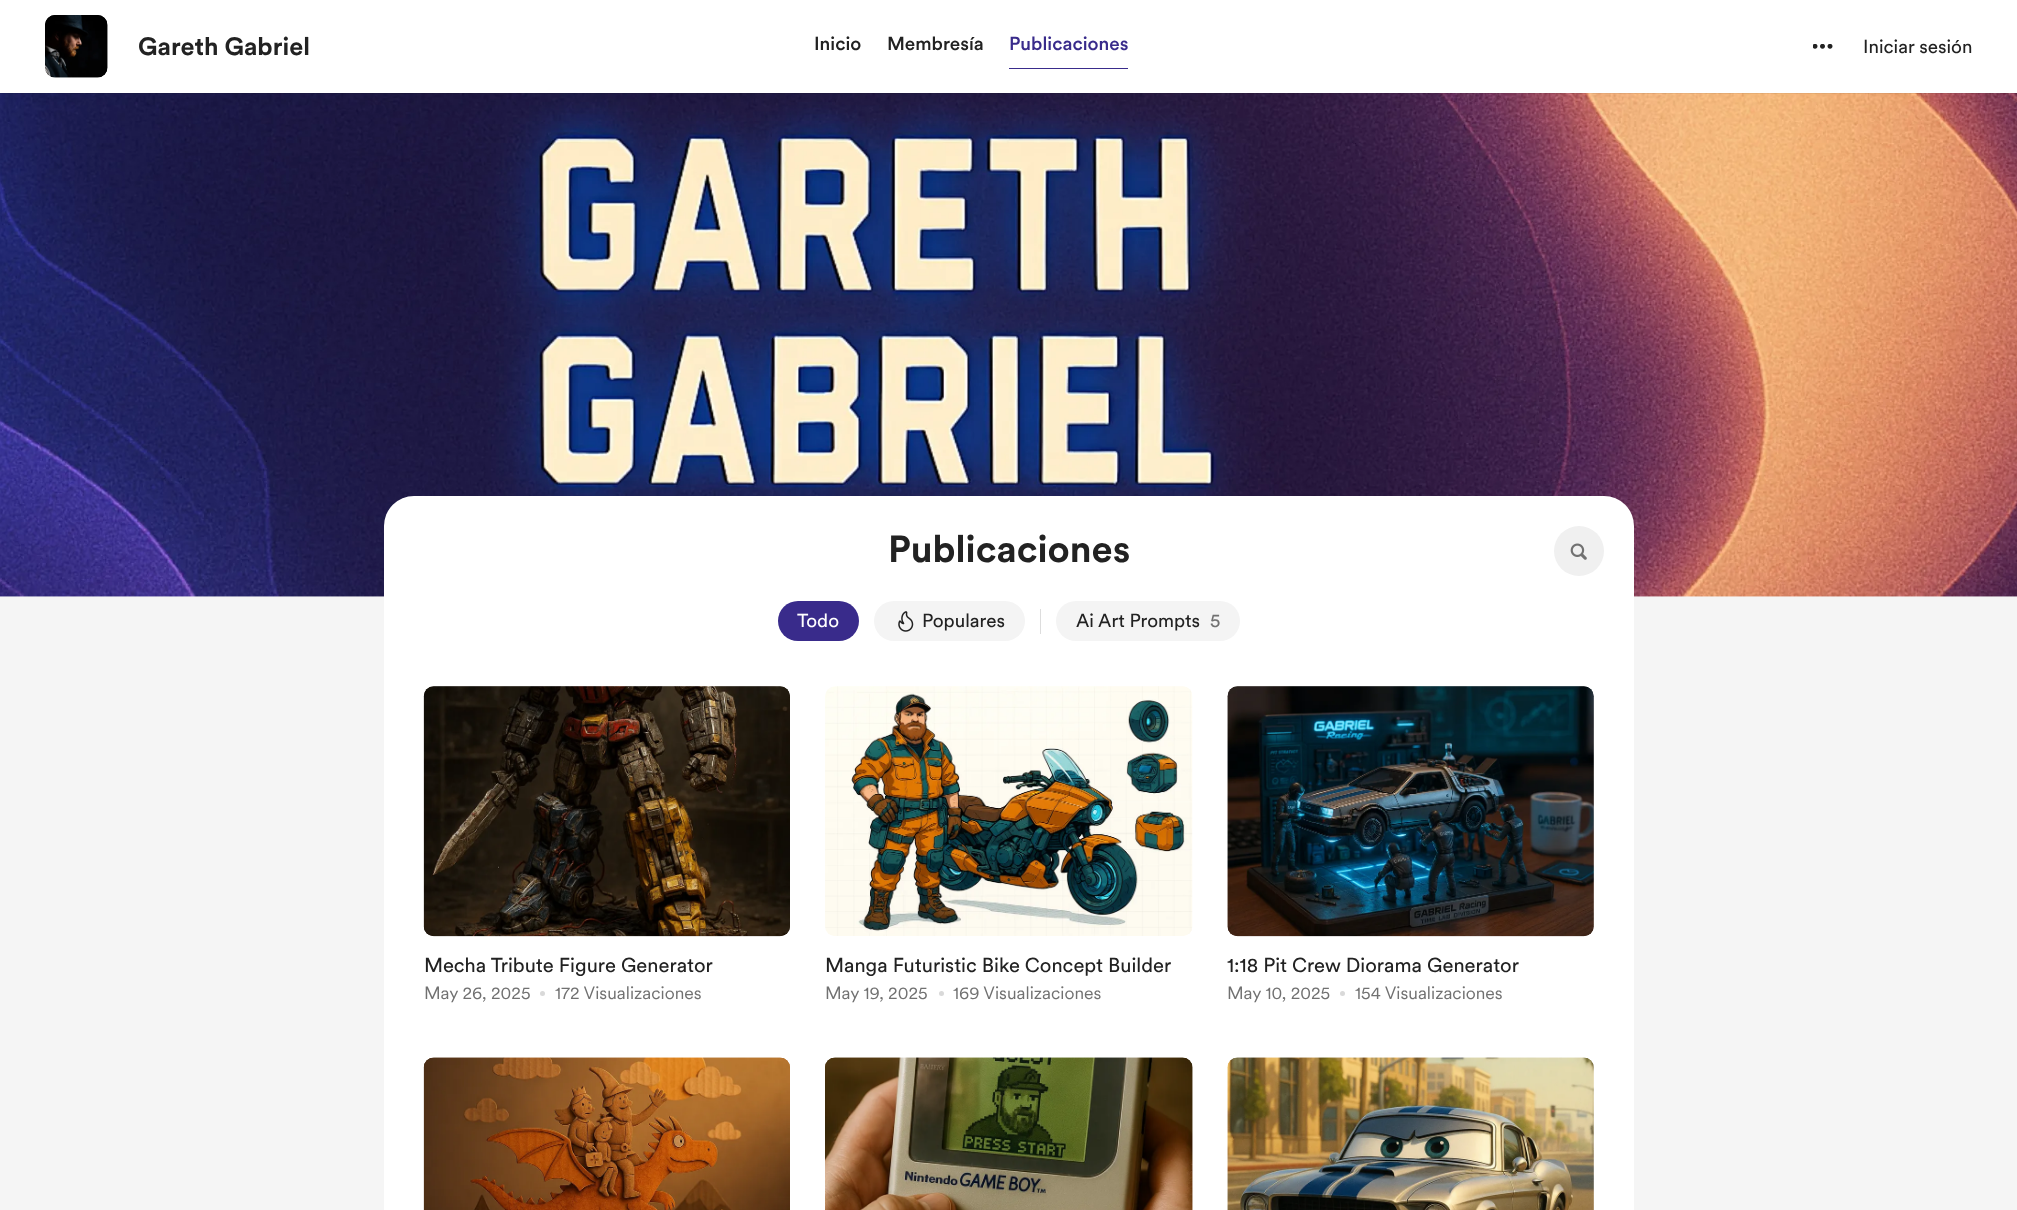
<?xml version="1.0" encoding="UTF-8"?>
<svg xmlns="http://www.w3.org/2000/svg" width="2017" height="1210">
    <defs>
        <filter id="blur1" x="-50%" y="-200%" width="200%" height="500%"><feGaussianBlur stdDeviation="0.5"/></filter>
    </defs>
    <rect width="100%" height="100%" fill="#F5F5F5"/>
    <image x="0" y="596" width="2017" height="1" href="img_04.png"/>
    <image x="0" y="93" width="2017" height="504" href="img_05.png"/>
    <rect x="0" y="1" width="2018" height="93" fill="#000000" fill-opacity="0.06" filter="url(#blur1)"/>
    <rect x="0" y="0" width="2017" height="93" fill="#FFFFFF"/>
    <image x="45" y="15" width="63" height="63" href="img_01.png"/>
    <image x="45" y="15" width="63" height="63" href="img_02.png"/>
    <text x="138" y="55" font-family="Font" font-size="25" font-weight="700" fill="#222222">Gareth Gabriel</text>
    <text x="814" y="50" font-family="Font" font-size="18.75" font-weight="500" fill="#222222">Inicio</text>
    <text x="887" y="50" font-family="Font" font-size="18.75" font-weight="500" fill="#222222">Membresía</text>
    <text x="1009" y="50" font-family="Font" font-size="18.75" font-weight="500" fill="#392B8B">Publicaciones</text>
    <rect x="1009" y="68" width="119" height="1" fill="#392B8B"/>
    <image x="1813" y="44" width="20" height="5" href="img_03.png"/>
    <text x="1863" y="53" font-family="Font" font-size="18.75" fill="#222222">Iniciar sesión</text>
    <rect x="384" y="496" width="1250" height="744" rx="30" fill="#FFFFFF"/>
    <text x="888" y="562" font-family="Font" font-size="37.5" font-weight="700" fill="#222222">Publicaciones</text>
    <circle cx="1579" cy="551" r="25" fill="#F0F0F0"/>
    <image x="1570" y="543" width="17" height="17" href="img_06.png"/>
    <rect x="778" y="601" width="81" height="40" rx="20" fill="#392B8B"/>
    <text x="797" y="627" font-family="Font" font-size="18.75" fill="#FFFFFF">Todo</text>
    <rect x="874" y="601" width="151" height="40" rx="20" fill="#F4F4F4"/>
    <image x="898" y="611" width="16" height="21" href="img_07.png"/>
    <text x="922" y="627" font-family="Font" font-size="18.75" fill="#222222">Populares</text>
    <rect x="1040" y="609" width="1" height="25" fill="#DDDDDD"/>
    <rect x="1056" y="601" width="184" height="40" rx="20" fill="#F4F4F4"/>
    <text x="1076" y="627" font-family="Font" font-size="18.75" fill="#222222">Ai Art Prompts</text>
    <text x="1210" y="627" font-family="Font" font-size="18.75" fill="#717171">5</text>
    <image x="423" y="686" width="367" height="251" href="img_08.png"/>
    <image x="423" y="686" width="367" height="251" href="img_09.png"/>
    <text x="424" y="972" font-family="Font" font-size="20" fill="#222222">Mecha Tribute Figure Generator</text>
    <text x="424" y="999" font-family="'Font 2'" font-size="17.5" fill="#717171">May 26, 2025</text>
    <circle cx="542.5" cy="993.5" r="2.5" fill="#D9D9D9"/>
    <text x="555" y="999" font-family="'Font 2'" font-size="17.5" fill="#717171">172 Visualizaciones</text>
    <image x="825" y="686" width="368" height="250" href="img_10.png"/>
    <image x="837" y="686" width="355" height="248" href="img_11.png"/>
    <text x="825" y="972" font-family="Font" font-size="20" fill="#222222">Manga Futuristic Bike Concept Builder</text>
    <text x="825" y="999" font-family="'Font 2'" font-size="17.5" fill="#717171">May 19, 2025</text>
    <circle cx="941.5" cy="993.5" r="2.5" fill="#D9D9D9"/>
    <text x="953" y="999" font-family="'Font 2'" font-size="17.5" fill="#717171">169 Visualizaciones</text>
    <image x="1227" y="686" width="367" height="251" href="img_12.png"/>
    <image x="1227" y="686" width="367" height="251" href="img_13.png"/>
    <text x="1227" y="972" font-family="Font" font-size="20" fill="#222222">1:18 Pit Crew Diorama Generator</text>
    <text x="1227" y="999" font-family="'Font 2'" font-size="17.5" fill="#717171">May 10, 2025</text>
    <circle cx="1342.5" cy="993.5" r="2.5" fill="#D9D9D9"/>
    <text x="1355" y="999" font-family="'Font 2'" font-size="17.5" fill="#717171">154 Visualizaciones</text>
    <image x="423" y="1057" width="367" height="153" href="img_14.png"/>
    <image x="423" y="1057" width="367" height="153" href="img_15.png"/>
    <image x="825" y="1057" width="368" height="153" href="img_16.png"/>
    <image x="825" y="1057" width="368" height="153" href="img_17.png"/>
    <image x="1227" y="1057" width="367" height="153" href="img_18.png"/>
    <image x="1227" y="1057" width="367" height="153" href="img_19.png"/>
</svg>
